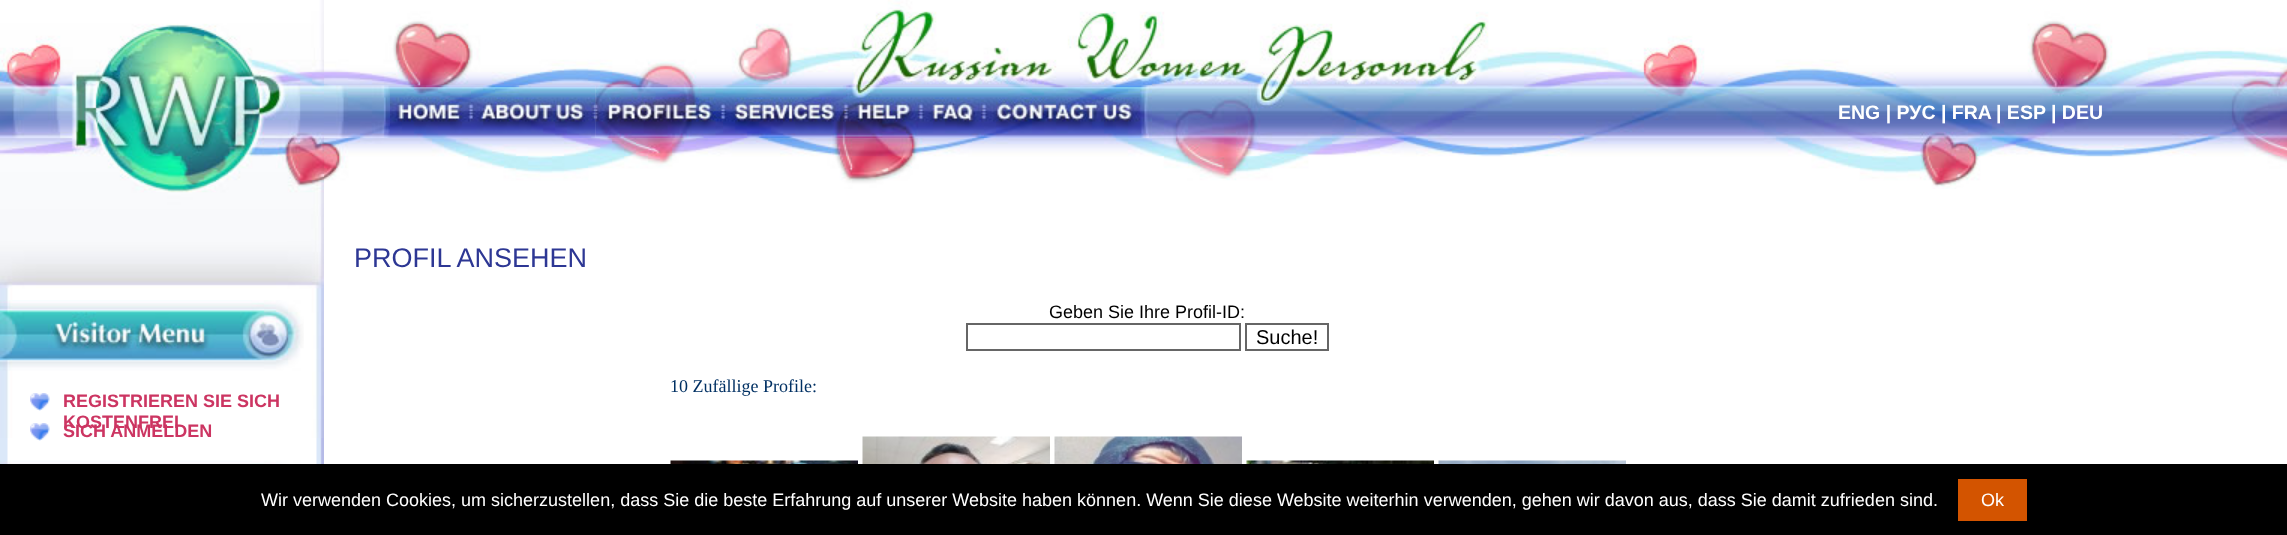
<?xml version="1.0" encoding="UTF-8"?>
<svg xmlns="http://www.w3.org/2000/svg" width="2287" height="535">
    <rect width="100%" height="100%" fill="#FFFFFF"/>
    <image x="324" y="0" width="1963" height="189" href="img_01.png"/>
    <image x="0" y="438" width="324" height="26" href="img_02.png"/>
    <text x="1838" y="119" font-family="Liberation Sans" font-size="19.5" font-weight="700" fill="#FFFFFF">ENG | РУС | FRA</text>
    <text x="1996" y="119" font-family="Liberation Sans" font-size="19.5" font-weight="700" fill="#FFFFFF">| ESP</text>
    <text x="2051" y="119" font-family="Liberation Sans" font-size="19.5" font-weight="700" fill="#FFFFFF">| DEU</text>
    <image x="324" y="85" width="66" height="53" href="img_03.png"/>
    <image x="390" y="85" width="81" height="53" href="img_04.png"/>
    <image x="471" y="85" width="125" height="53" href="img_05.png"/>
    <image x="595" y="85" width="128" height="53" href="img_06.png"/>
    <image x="723" y="85" width="123" height="53" href="img_07.png"/>
    <image x="846" y="85" width="75" height="53" href="img_08.png"/>
    <image x="921" y="85" width="63" height="53" href="img_09.png"/>
    <image x="984" y="85" width="168" height="53" href="img_10.png"/>
    <text x="354" y="267" font-family="Liberation Sans" font-size="27" fill="#2D3794">PROFIL ANSEHEN</text>
    <text x="1049" y="318" font-family="Liberation Sans" font-size="18" fill="#000000">Geben Sie Ihre Profil-ID:</text>
    <rect x="967" y="324" width="273" height="26" fill="none" stroke="#666666" stroke-width="2"/>
    <rect x="1246" y="324" width="82" height="26" fill="none" stroke="#666666" stroke-width="2"/>
    <text x="1256" y="344" font-family="Liberation Sans" font-size="20" fill="#000000">Suche!</text>
    <text x="670" y="392" font-family="Liberation Serif" font-size="18" fill="#003063">10 Zufällige Profile:</text>
    <image x="670" y="460" width="188" height="4" href="img_11.png"/>
    <image x="862" y="436" width="188" height="28" href="img_12.png"/>
    <image x="1054" y="436" width="188" height="28" href="img_13.png"/>
    <image x="1246" y="460" width="188" height="4" href="img_14.png"/>
    <image x="1438" y="460" width="188" height="4" href="img_15.png"/>
    <image x="0" y="0" width="324" height="438" href="img_16.png"/>
    <image x="0" y="300" width="304" height="71" href="img_17.png"/>
    <image x="30" y="393" width="20" height="18" href="img_18.png"/>
    <text font-family="Liberation Sans" font-size="18" font-weight="700" fill="#CC3562">
        <tspan x="63" y="407">REGISTRIEREN SIE SICH</tspan>
        <tspan x="63" y="428">KOSTENFREI</tspan>
    </text>
    <image x="30" y="423" width="20" height="18" href="img_18.png"/>
    <text x="63" y="437" font-family="Liberation Sans" font-size="18" font-weight="700" fill="#CC3562">SICH ANMELDEN</text>
    <image x="0" y="460" width="304" height="4" href="img_19.png"/>
    <rect x="0" y="464" width="2287" height="71" fill="#000000"/>
    <text x="261" y="506" font-family="Liberation Sans" font-size="18" fill="#FFFFFF">Wir verwenden Cookies, um sicherzustellen, dass Sie die beste Erfahrung auf unserer Website haben können. Wenn Sie diese Website weiterhin verwenden, gehen wir davon aus, dass Sie damit zufrieden sind.</text>
    <rect x="1958" y="479" width="69" height="42" fill="#D35400"/>
    <text x="1981" y="506" font-family="Liberation Sans" font-size="18" fill="#FFFFFF">Ok</text>
</svg>
